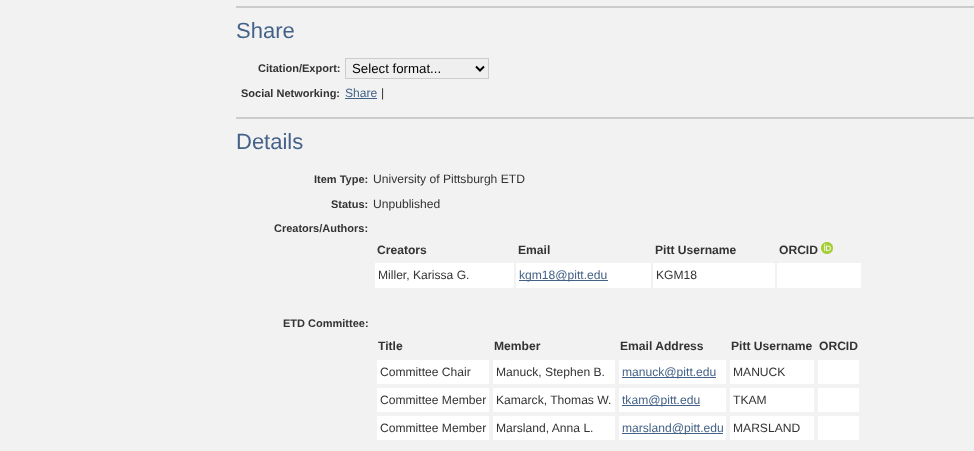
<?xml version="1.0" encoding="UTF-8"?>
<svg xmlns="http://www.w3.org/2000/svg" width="974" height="451">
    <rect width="100%" height="100%" fill="#F2F2F2"/>
    <rect x="236" y="6" width="738" height="2" fill="#CCCCCC"/>
    <text x="236" y="38" font-family="Liberation Sans" font-size="22" fill="#446288">Share</text>
    <text x="258" y="72" font-family="Liberation Sans" font-size="11" font-weight="700" fill="#333333">Citation/Export:</text>
    <rect x="345.5" y="58.5" width="143" height="20" fill="#EFEFEF" stroke="#CCCCCC"/>
    <path d="M 476 66.5 L 480 70.5 L 484 66.5" fill="none" stroke="#000000" stroke-width="2"/>
    <text x="352" y="73" font-family="Liberation Sans" font-size="13.25" fill="#000000">Select format...</text>
    <text x="241" y="97" font-family="Liberation Sans" font-size="11" font-weight="700" fill="#333333">Social Networking:</text>
    <text x="345" y="97" font-family="Liberation Sans" font-size="12.1" fill="#446288">Share</text>
    <rect x="345" y="98" width="32" height="1" fill="#446288"/>
    <text x="381" y="97" font-family="Liberation Sans" font-size="12.1" fill="#333333">|</text>
    <rect x="236" y="117" width="738" height="2" fill="#CCCCCC"/>
    <text x="236" y="149" font-family="Liberation Sans" font-size="22" fill="#446288">Details</text>
    <text x="314" y="183" font-family="Liberation Sans" font-size="11" font-weight="700" fill="#333333">Item Type:</text>
    <text x="373" y="183" font-family="Liberation Sans" font-size="12.1" fill="#333333">University of Pittsburgh ETD</text>
    <text x="331" y="208" font-family="Liberation Sans" font-size="11" font-weight="700" fill="#333333">Status:</text>
    <text x="373" y="208" font-family="Liberation Sans" font-size="12.1" fill="#333333">Unpublished</text>
    <text x="274" y="232" font-family="Liberation Sans" font-size="11" font-weight="700" fill="#333333">Creators/Authors:</text>
    <text x="377" y="254" font-family="Liberation Sans" font-size="12.1" font-weight="700" fill="#333333">Creators</text>
    <text x="518" y="254" font-family="Liberation Sans" font-size="12.1" font-weight="700" fill="#333333">Email</text>
    <text x="655" y="254" font-family="Liberation Sans" font-size="12.1" font-weight="700" fill="#333333">Pitt Username</text>
    <text x="779" y="254" font-family="Liberation Sans" font-size="12.1" font-weight="700" fill="#333333">ORCID</text>
    <image x="821" y="242" width="12" height="12" href="img_01.png"/>
    <rect x="375" y="263" width="139" height="25" fill="#FFFFFF"/>
    <text x="378" y="279" font-family="Liberation Sans" font-size="12.1" fill="#333333">Miller, Karissa G.</text>
    <rect x="516" y="263" width="135" height="25" fill="#FFFFFF"/>
    <rect x="519" y="280" width="89" height="1" fill="#446288"/>
    <text x="519" y="279" font-family="Liberation Sans" font-size="12.1" fill="#446288">kgm18@pitt.edu</text>
    <rect x="653" y="263" width="122" height="25" fill="#FFFFFF"/>
    <text x="656" y="279" font-family="Liberation Sans" font-size="12.1" fill="#333333">KGM18</text>
    <rect x="777" y="263" width="84" height="25" fill="#FFFFFF"/>
    <text x="283" y="327" font-family="Liberation Sans" font-size="11" font-weight="700" fill="#333333">ETD Committee:</text>
    <text x="378" y="350" font-family="Liberation Sans" font-size="12.1" font-weight="700" fill="#333333">Title</text>
    <text x="494" y="350" font-family="Liberation Sans" font-size="12.1" font-weight="700" fill="#333333">Member</text>
    <text x="620" y="350" font-family="Liberation Sans" font-size="12.1" font-weight="700" fill="#333333">Email Address</text>
    <text x="731" y="350" font-family="Liberation Sans" font-size="12.1" font-weight="700" fill="#333333">Pitt Username</text>
    <text x="819" y="350" font-family="Liberation Sans" font-size="12.1" font-weight="700" fill="#333333">ORCID</text>
    <rect x="377" y="360" width="112" height="24" fill="#FFFFFF"/>
    <text x="380" y="376" font-family="Liberation Sans" font-size="12.1" fill="#333333">Committee Chair</text>
    <rect x="493" y="360" width="122" height="24" fill="#FFFFFF"/>
    <text x="496" y="376" font-family="Liberation Sans" font-size="12.1" fill="#333333">Manuck, Stephen B.</text>
    <rect x="619" y="360" width="107" height="24" fill="#FFFFFF"/>
    <rect x="622" y="377" width="94" height="1" fill="#446288"/>
    <text x="622" y="376" font-family="Liberation Sans" font-size="12.1" fill="#446288">manuck@pitt.edu</text>
    <rect x="730" y="360" width="84" height="24" fill="#FFFFFF"/>
    <text x="733" y="376" font-family="Liberation Sans" font-size="12.1" fill="#333333">MANUCK</text>
    <rect x="818" y="360" width="41" height="24" fill="#FFFFFF"/>
    <rect x="377" y="388" width="112" height="24" fill="#FFFFFF"/>
    <text x="380" y="404" font-family="Liberation Sans" font-size="12.1" fill="#333333">Committee Member</text>
    <rect x="493" y="388" width="122" height="24" fill="#FFFFFF"/>
    <text x="496" y="404" font-family="Liberation Sans" font-size="12.1" fill="#333333">Kamarck, Thomas W.</text>
    <rect x="619" y="388" width="107" height="24" fill="#FFFFFF"/>
    <rect x="622" y="405" width="78" height="1" fill="#446288"/>
    <text x="622" y="404" font-family="Liberation Sans" font-size="12.1" fill="#446288">tkam@pitt.edu</text>
    <rect x="730" y="388" width="84" height="24" fill="#FFFFFF"/>
    <text x="733" y="404" font-family="Liberation Sans" font-size="12.1" fill="#333333">TKAM</text>
    <rect x="818" y="388" width="41" height="24" fill="#FFFFFF"/>
    <rect x="377" y="416" width="112" height="24" fill="#FFFFFF"/>
    <text x="380" y="432" font-family="Liberation Sans" font-size="12.1" fill="#333333">Committee Member</text>
    <rect x="493" y="416" width="122" height="24" fill="#FFFFFF"/>
    <text x="496" y="432" font-family="Liberation Sans" font-size="12.1" fill="#333333">Marsland, Anna L.</text>
    <rect x="619" y="416" width="107" height="24" fill="#FFFFFF"/>
    <rect x="622" y="433" width="101" height="1" fill="#446288"/>
    <text x="622" y="432" font-family="Liberation Sans" font-size="12.1" fill="#446288">marsland@pitt.edu</text>
    <rect x="730" y="416" width="84" height="24" fill="#FFFFFF"/>
    <text x="733" y="432" font-family="Liberation Sans" font-size="12.1" fill="#333333">MARSLAND</text>
    <rect x="818" y="416" width="41" height="24" fill="#FFFFFF"/>
</svg>
